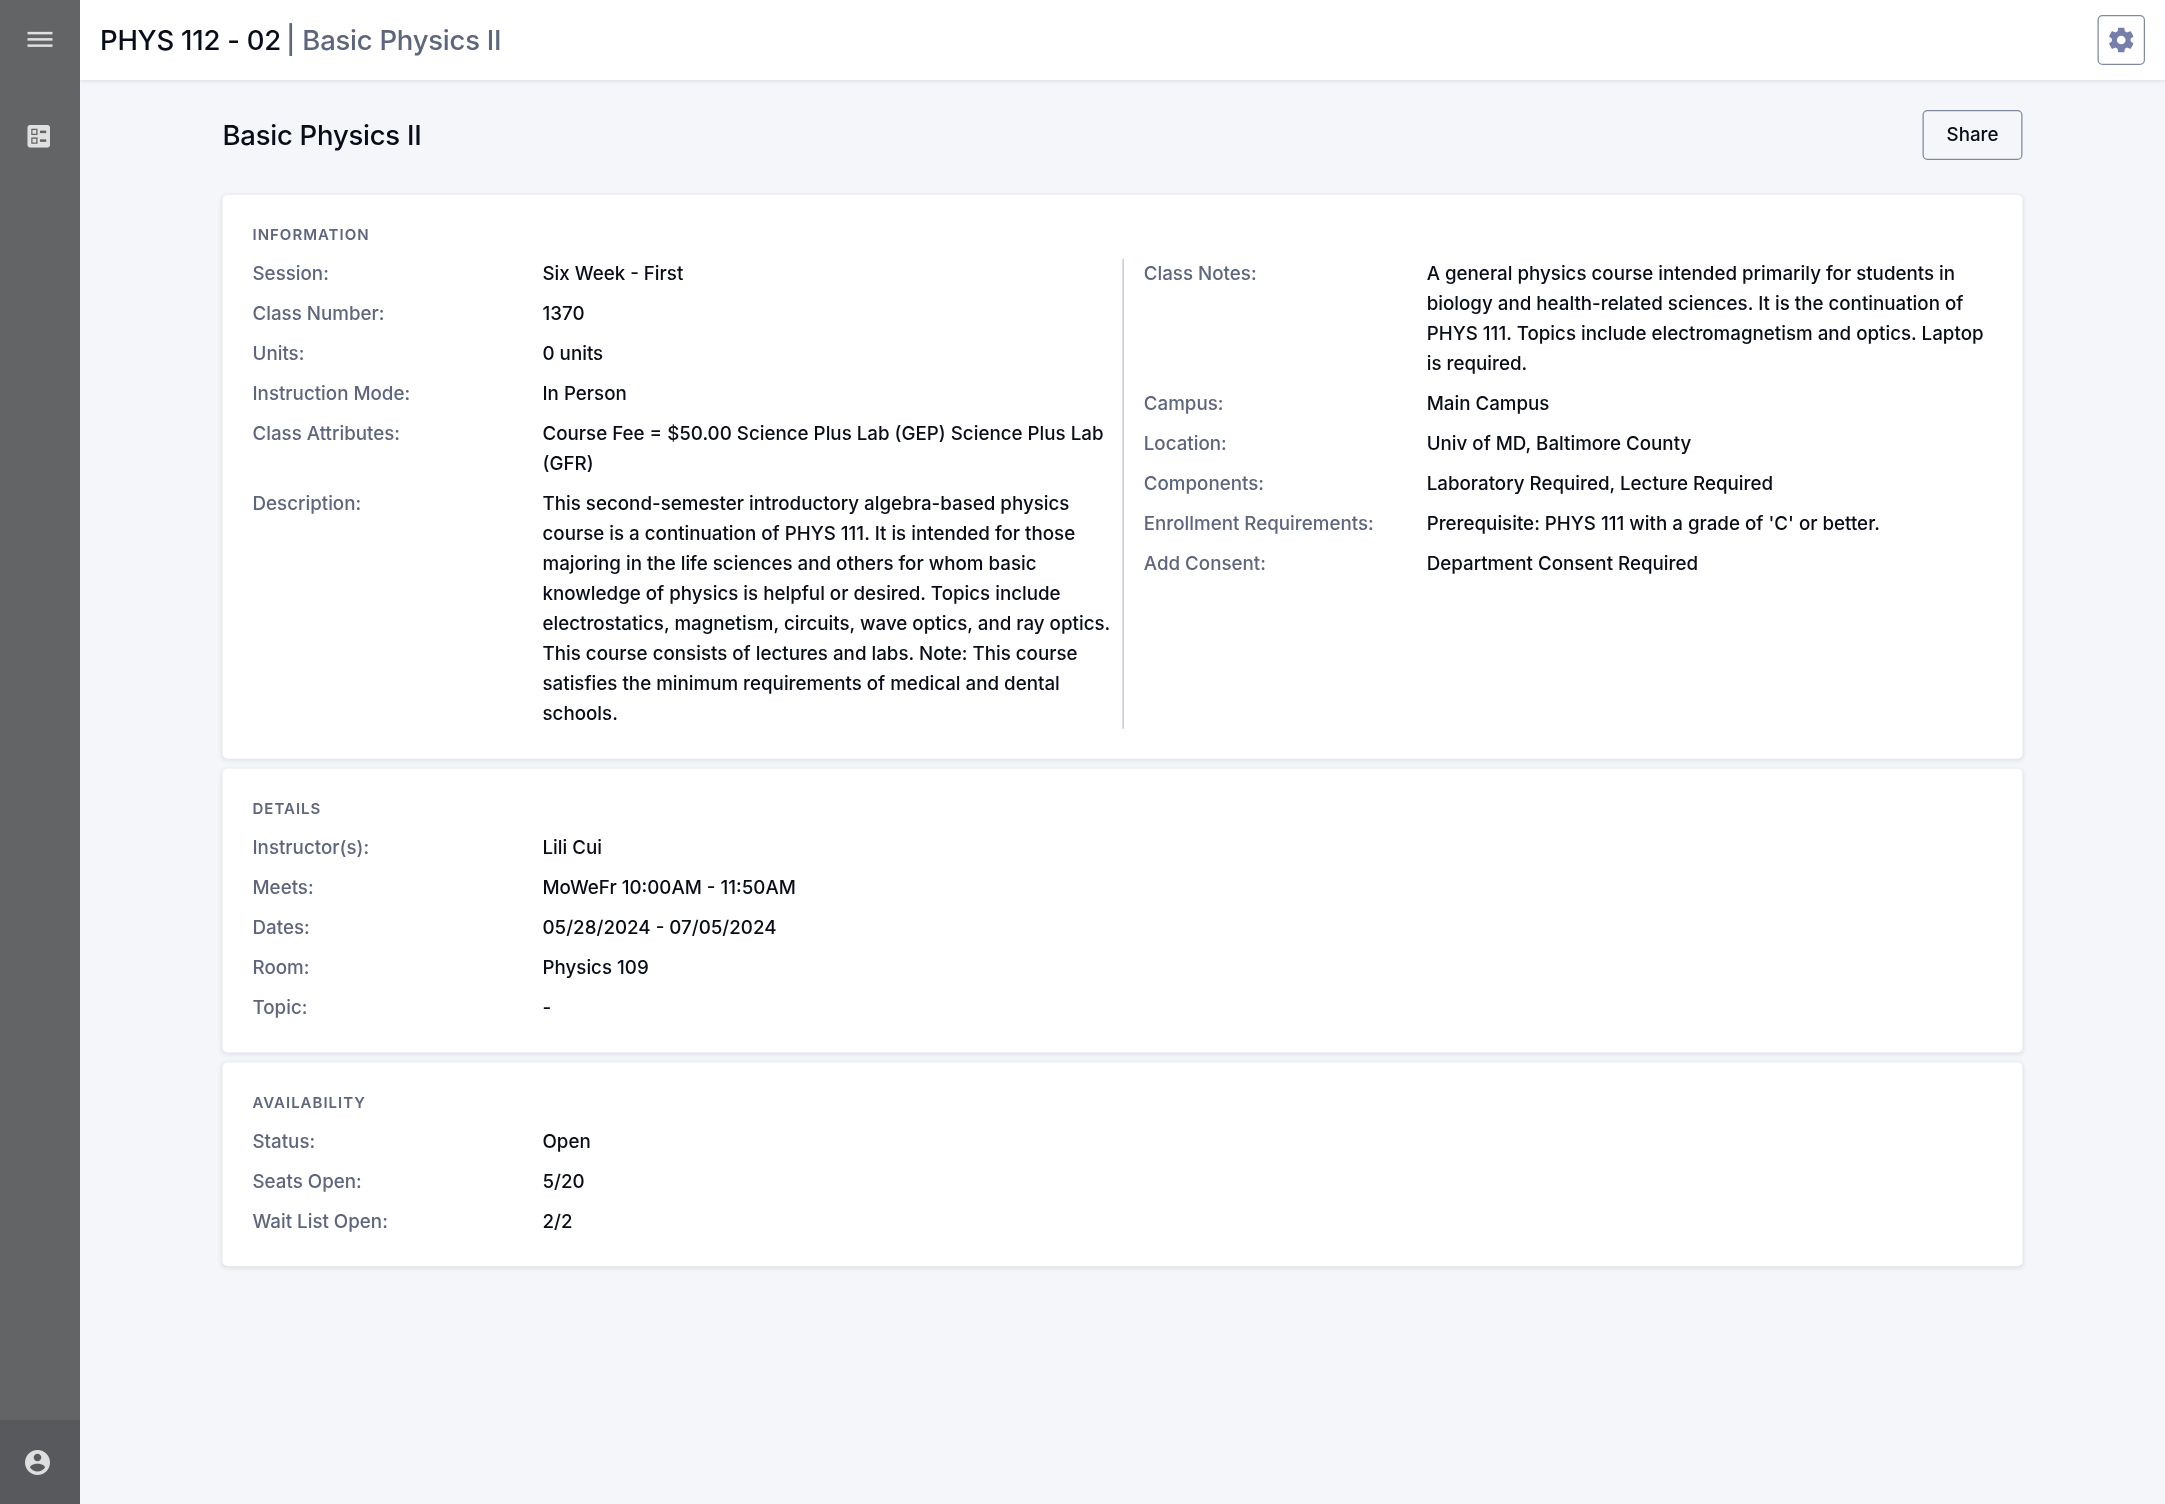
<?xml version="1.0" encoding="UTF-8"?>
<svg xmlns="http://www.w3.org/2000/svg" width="2165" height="1504">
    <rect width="100%" height="100%" fill="#F5F6FA"/>
    <rect x="0" y="0" width="80" height="1420" fill="#636466"/>
    <image x="27" y="31" width="26" height="16" href="img_01.png"/>
    <image x="27" y="125" width="23" height="23" href="img_02.png"/>
    <rect x="0" y="1420" width="80" height="84" fill="#58595D"/>
    <image x="25" y="1450" width="25" height="25" href="img_03.png"/>
    <image x="80" y="0" width="2085" height="1271" href="img_04.png"/>
</svg>
